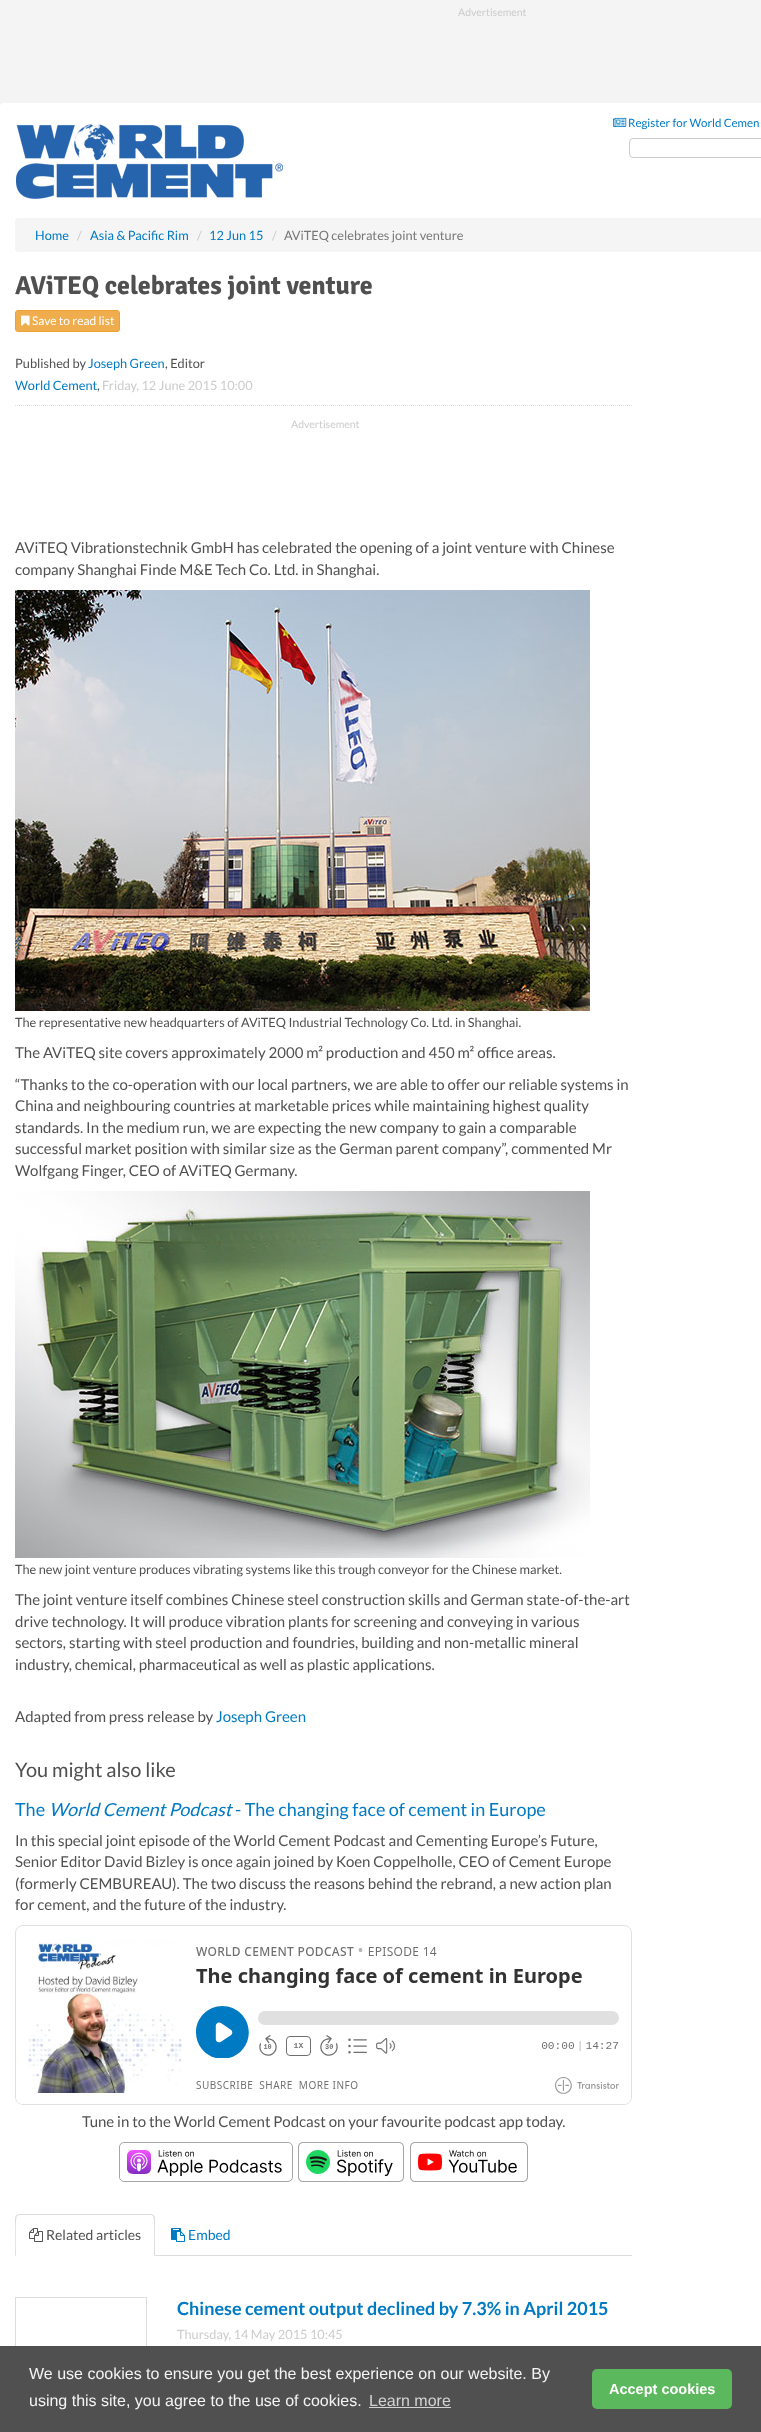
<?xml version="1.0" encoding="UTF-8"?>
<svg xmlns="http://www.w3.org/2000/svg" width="761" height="2432">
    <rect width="100%" height="100%" fill="#F4F4F4"/>
    <text x="458" y="16" font-family="Lato" font-size="10.5" fill="#CCCCCC">Advertisement</text>
    <rect x="0" y="103" width="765" height="39" rx="4" fill="#FFFFFF"/>
    <image x="613" y="117" width="14" height="10" href="img_01.png"/>
    <text x="628" y="127" font-family="Lato" font-size="11.5" fill="#007AC3">Register for World Cemen</text>
    <rect x="0" y="139" width="761" height="133" fill="#FFFFFF"/>
    <image x="16" y="124" width="267" height="75" href="img_02.png"/>
    <rect x="629.5" y="138.5" width="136" height="19" rx="3.5" fill="none" stroke="#CCCCCC"/>
    <rect x="15" y="218" width="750" height="34" rx="4" fill="#F5F5F5"/>
    <text x="35" y="240" font-family="Lato" font-size="12.75" fill="#007AC3">Home</text>
    <text x="77" y="240" font-family="Lato" font-size="12.75" fill="#CCCCCC">/</text>
    <text x="90" y="240" font-family="Lato" font-size="12.75" fill="#007AC3">Asia &amp; Pacific Rim</text>
    <text x="197" y="240" font-family="Lato" font-size="12.75" fill="#CCCCCC">/</text>
    <text x="209" y="240" font-family="Lato" font-size="12.75" fill="#007AC3">12 Jun 15</text>
    <text x="272" y="240" font-family="Lato" font-size="12.75" fill="#CCCCCC">/</text>
    <text x="284" y="240" font-family="Lato" font-size="12.75" fill="#777777">AViTEQ celebrates joint venture</text>
    <rect x="0" y="268" width="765" height="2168" rx="4" fill="#FFFFFF"/>
    <text x="15" y="294" font-family="Signika" font-size="26" font-weight="700" fill="#505050">AViTEQ celebrates joint venture</text>
    <rect x="15.5" y="310.5" width="104" height="21" rx="2.5" fill="#F0AD4E" stroke="#EEA236"/>
    <image x="21" y="315" width="9" height="11" href="img_03.png"/>
    <text x="32" y="325" font-family="Lato" font-size="12" fill="#FFFFFF">Save to read list</text>
    <text x="15" y="368" font-family="Lato" font-size="12.75" fill="#505050">Published by</text>
    <text x="88" y="368" font-family="Lato" font-size="12.75" fill="#007AC3">Joseph Green</text>
    <text x="165" y="368" font-family="Lato" font-size="12.75" fill="#505050">, Editor</text>
    <text x="15" y="390" font-family="Lato" font-size="12.75" fill="#007AC3">World Cement</text>
    <text x="97" y="390" font-family="Lato" font-size="12.75" fill="#505050">,</text>
    <text x="102" y="390" font-family="Lato" font-size="12.75" fill="#CCCCCC">Friday, 12 June 2015 10:00</text>
    <path d="M 15 405.5 H 632" fill="none" stroke="#DDDDDD" stroke-dasharray="1 1"/>
    <text x="291" y="428" font-family="Lato" font-size="10.5" fill="#CCCCCC">Advertisement</text>
    <text font-family="Lato" font-size="15" fill="#505050">
        <tspan x="15" y="553">AViTEQ Vibrationstechnik GmbH has celebrated the opening of a joint venture with Chinese</tspan>
        <tspan x="15" y="575">company Shanghai Finde M&amp;E Tech Co. Ltd. in Shanghai.</tspan>
    </text>
    <image x="15" y="590" width="575" height="421" href="img_04.png"/>
    <text x="15" y="1027" font-family="Lato" font-size="12.75" fill="#505050">The representative new headquarters of AViTEQ Industrial Technology Co. Ltd. in Shanghai.</text>
    <text x="15" y="1058" font-family="Lato" font-size="15" fill="#505050">The AViTEQ site covers approximately 2000 m² production and 450 m² office areas.</text>
    <text font-family="Lato" font-size="15" fill="#505050">
        <tspan x="15" y="1090">“Thanks to the co-operation with our local partners, we are able to offer our reliable systems in</tspan>
        <tspan x="15" y="1111">China and neighbouring countries at marketable prices while maintaining highest quality</tspan>
        <tspan x="15" y="1133">standards. In the medium run, we are expecting the new company to gain a comparable</tspan>
        <tspan x="15" y="1154">successful market position with similar size as the German parent company”, commented Mr</tspan>
        <tspan x="15" y="1176">Wolfgang Finger, CEO of AViTEQ Germany.</tspan>
    </text>
    <image x="15" y="1191" width="575" height="367" href="img_05.png"/>
    <text x="15" y="1574" font-family="Lato" font-size="12.75" fill="#505050">The new joint venture produces vibrating systems like this trough conveyor for the Chinese market.</text>
    <text font-family="Lato" font-size="15" fill="#505050">
        <tspan x="15" y="1605">The joint venture itself combines Chinese steel construction skills and German state-of-the-art</tspan>
        <tspan x="15" y="1627">drive technology. It will produce vibration plants for screening and conveying in various</tspan>
        <tspan x="15" y="1648">sectors, starting with steel production and foundries, building and non-metallic mineral</tspan>
        <tspan x="15" y="1670">industry, chemical, pharmaceutical as well as plastic applications.</tspan>
    </text>
    <text x="15" y="1722" font-family="Lato" font-size="15" fill="#505050">Adapted from press release by</text>
    <text x="216" y="1722" font-family="Lato" font-size="15" fill="#007AC3">Joseph Green</text>
    <text x="15" y="1777" font-family="Lato" font-size="20" fill="#505050">You might also like</text>
    <text x="15" y="1816" font-family="Lato" font-size="18" fill="#007AC3">The</text>
    <text x="49" y="1816" font-family="Lato" font-size="18" font-style="italic" fill="#007AC3">World Cement Podcast</text>
    <text x="235" y="1816" font-family="Lato" font-size="18" fill="#007AC3">- The changing face of cement in Europe</text>
    <text font-family="Lato" font-size="15" fill="#505050">
        <tspan x="15" y="1846">In this special joint episode of the World Cement Podcast and Cementing Europe’s Future,</tspan>
        <tspan x="15" y="1867">Senior Editor David Bizley is once again joined by Koen Coppelholle, CEO of Cement Europe</tspan>
        <tspan x="15" y="1889">(formerly CEMBUREAU). The two discuss the reasons behind the rebrand, a new action plan</tspan>
        <tspan x="15" y="1910">for cement, and the future of the industry.</tspan>
    </text>
    <image x="15" y="1925" width="617" height="180" href="img_06.png"/>
    <text x="82" y="2127" font-family="Lato" font-size="15" fill="#505050">Tune in to the World Cement Podcast on your favourite podcast app today.</text>
    <image x="119" y="2142" width="174" height="40" href="img_07.png"/>
    <image x="298" y="2142" width="106" height="40" href="img_08.png"/>
    <image x="410" y="2142" width="118" height="40" href="img_09.png"/>
    <rect x="155" y="2255" width="477" height="1" fill="#DDDDDD"/>
    <path d="M 19 2214 L 16 2215 L 17 2216 L 19 2215 H 151 L 153 2216 L 154 2215 L 151 2214 Z" fill="#DDDDDD"/>
    <path d="M 155 2256 V 2218 C 155 2217 154 2216 154 2215 L 153 2216 C 155 2218 154 2250 154 2255 Z" fill="#DDDDDD"/>
    <path d="M 15 2256 L 16 2255 C 16 2250 15 2218 17 2216 L 16 2215 L 15 2218 Z" fill="#DDDDDD"/>
    <image x="29" y="2228" width="14" height="14" href="img_10.png"/>
    <text x="46" y="2240" font-family="Lato" font-size="14" fill="#505050">Related articles</text>
    <image x="171" y="2228" width="14" height="14" href="img_11.png"/>
    <text x="188" y="2240" font-family="Lato" font-size="14" fill="#007AC3">Embed</text>
    <rect x="15.5" y="2297.5" width="131" height="109" fill="none" stroke="#DDDDDD"/>
    <text x="177" y="2315" font-family="Lato" font-size="18" font-weight="700" fill="#007AC3">Chinese cement output declined by 7.3% in April 2015</text>
    <text x="177" y="2339" font-family="Lato" font-size="12.75" fill="#CCCCCC">Thursday, 14 May 2015 10:45</text>
    <rect x="0" y="2346" width="761" height="86" fill="#505050"/>
    <text font-family="Liberation Sans" font-size="16" fill="#F4F4F4">
        <tspan x="29" y="2379">We use cookies to ensure you get the best experience on our website. By</tspan>
        <tspan x="29" y="2406">using this site, you agree to the use of cookies.</tspan>
    </text>
    <text x="369" y="2406" font-family="Liberation Sans" font-size="16" fill="#D3D3D3">Learn more</text>
    <rect x="369" y="2407" width="82" height="1" fill="#D3D3D3"/>
    <rect x="592" y="2369" width="140" height="40" rx="5" fill="#5CB85C"/>
    <text x="609" y="2394" font-family="Liberation Sans" font-size="14.5" font-weight="700" fill="#FFFFFF">Accept cookies</text>
</svg>
